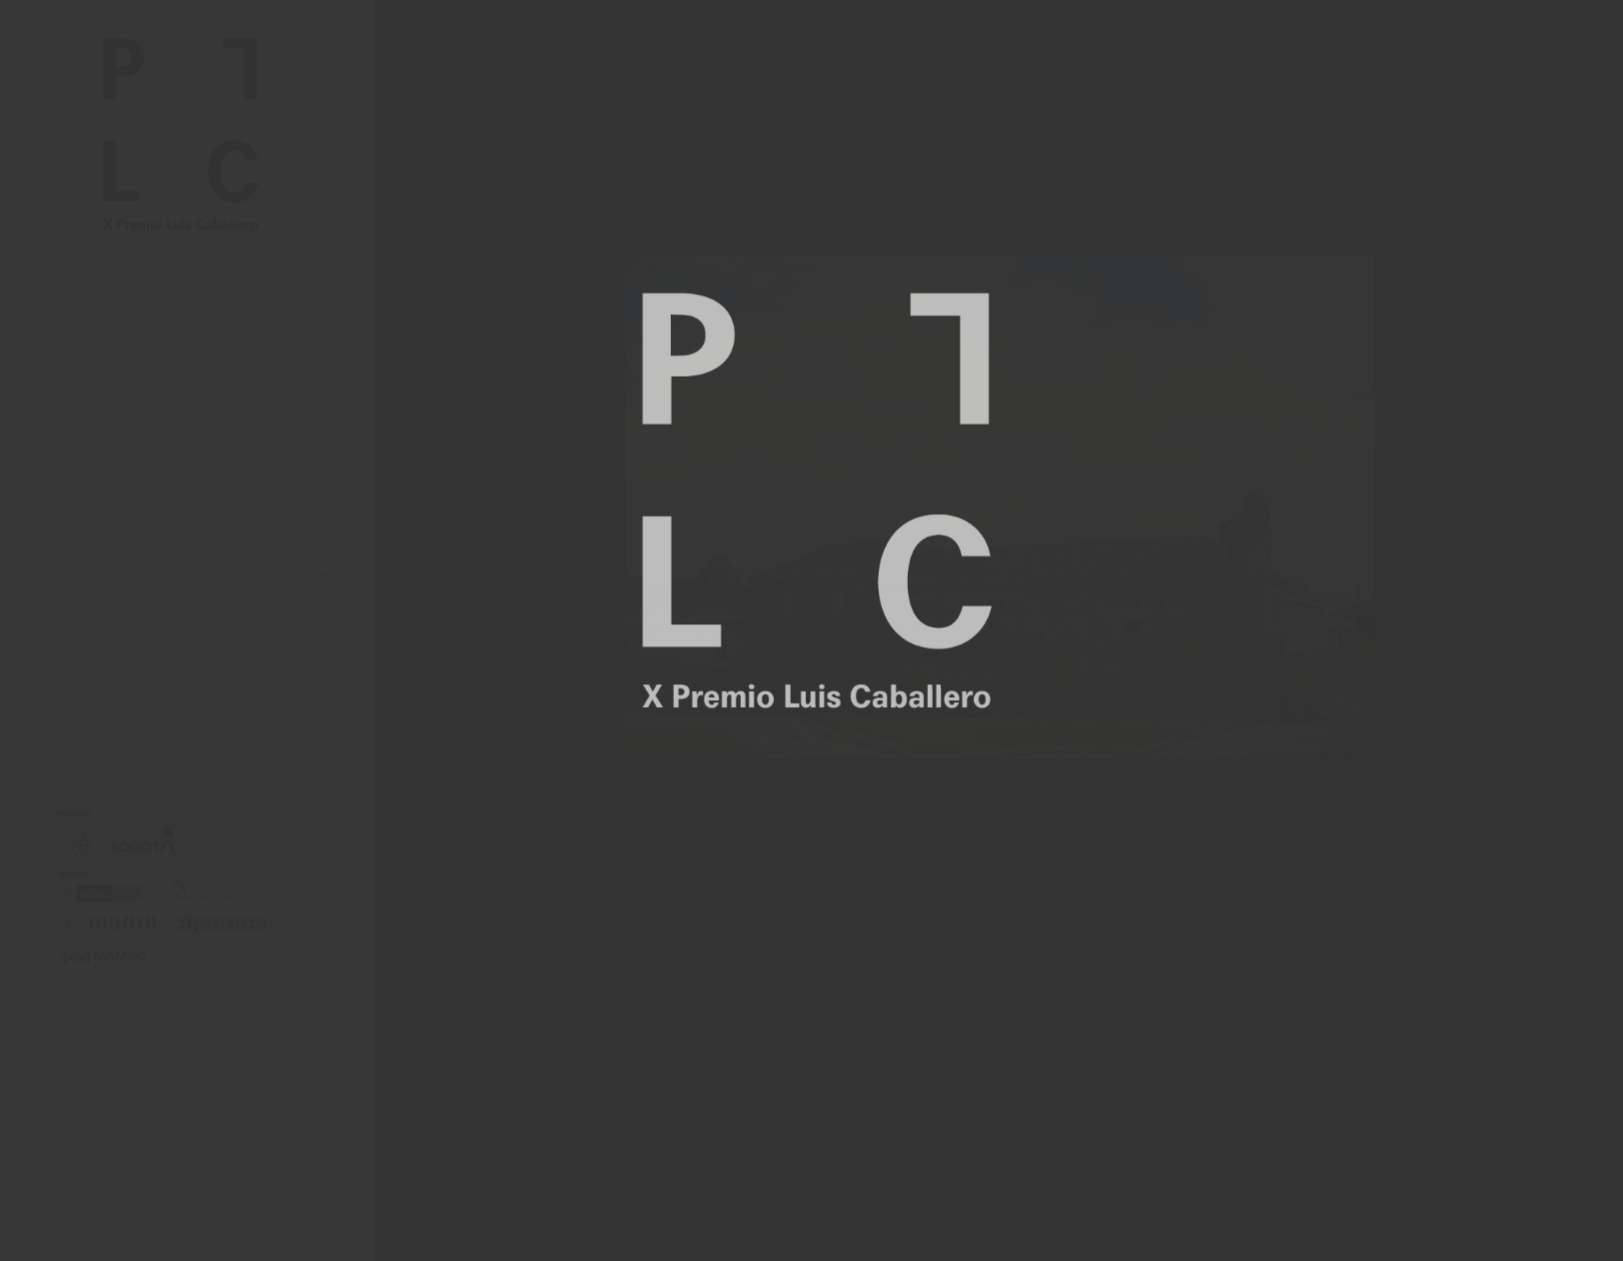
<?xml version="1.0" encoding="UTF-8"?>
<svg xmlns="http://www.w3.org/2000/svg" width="1623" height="1261">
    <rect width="100%" height="100%" fill="#333333"/>
    <rect x="0" y="0" width="375" height="1261" fill="#373737"/>
    <image x="99" y="37" width="161" height="193" href="img_01.png"/>
    <image x="319" y="571" width="12" height="7" href="img_02.png"/>
    <image x="49" y="804" width="220" height="170" href="img_03.png"/>
    <image x="625" y="255" width="750" height="504" href="img_04.png"/>
    <image x="641" y="292" width="351" height="417" href="img_05.png"/>
</svg>
